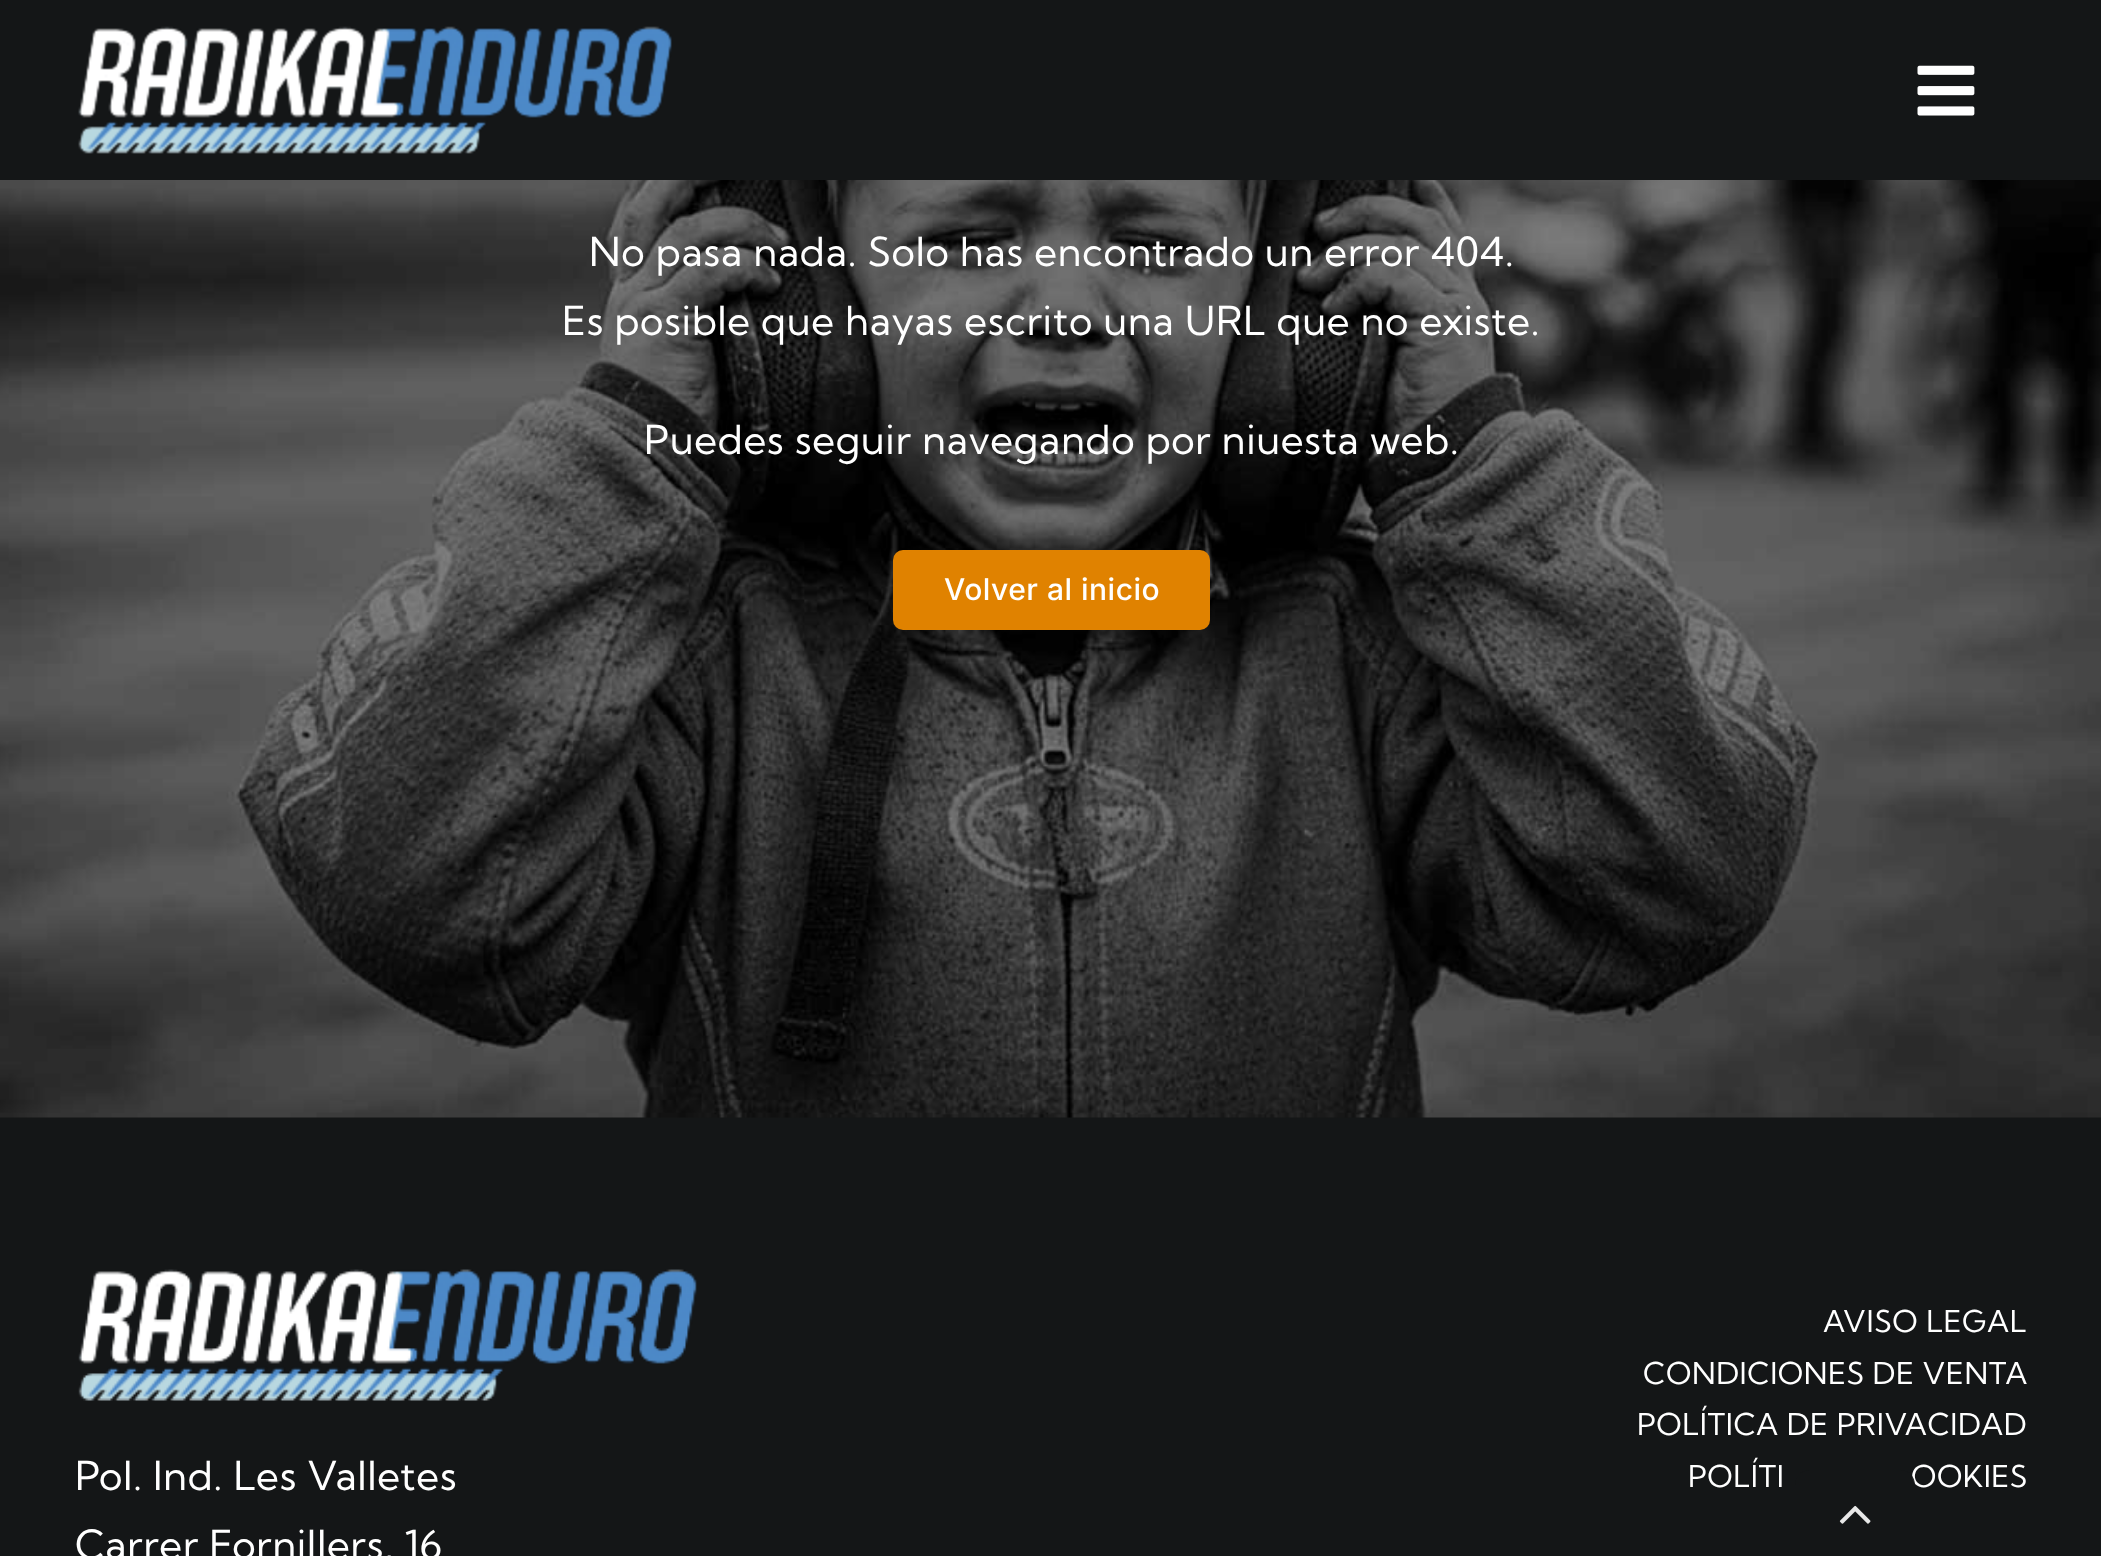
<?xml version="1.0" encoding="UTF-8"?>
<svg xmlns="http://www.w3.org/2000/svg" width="2101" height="1556">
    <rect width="100%" height="100%" fill="#141617"/>
    <image x="78" y="26" width="594" height="128" href="img_01.png"/>
    <image x="1917" y="65" width="58" height="51" href="img_02.png"/>
    <image x="0" y="180" width="2101" height="938" href="img_03.png"/>
    <text x="589" y="266" font-family="Kumbh Sans" font-size="40" letter-spacing="0.6" fill="#FFFFFF">No pasa nada. Solo has encontrado un error 404.</text>
    <text x="562" y="335" font-family="Kumbh Sans" font-size="40" letter-spacing="0.6" fill="#FFFFFF">Es posible que hayas escrito una URL que no existe.</text>
    <text x="644" y="454" font-family="Kumbh Sans" font-size="40" letter-spacing="0.6" fill="#FFFFFF">Puedes seguir navegando por niuesta web.</text>
    <rect x="893" y="550" width="317" height="80" rx="10" fill="#E08200"/>
    <text x="944" y="600" font-family="Inter" font-size="30" font-weight="500" letter-spacing="0.5" fill="#FFFFFF">Volver al inicio</text>
    <text x="1823" y="1332" font-family="Kumbh Sans" font-size="30" letter-spacing="0.6" fill="#FFFFFF">AVISO LEGAL</text>
    <text x="1643" y="1384" font-family="Kumbh Sans" font-size="30" letter-spacing="0.6" fill="#FFFFFF">CONDICIONES DE VENTA</text>
    <text x="1637" y="1435" font-family="Kumbh Sans" font-size="30" letter-spacing="0.6" fill="#FFFFFF">POLÍTICA DE PRIVACIDAD</text>
    <text x="1688" y="1487" font-family="Kumbh Sans" font-size="30" letter-spacing="0.6" fill="#FFFFFF">POLÍTI</text>
    <text x="1911" y="1487" font-family="Kumbh Sans" font-size="30" letter-spacing="0.6" fill="#FFFFFF">OOKIES</text>
    <image x="78" y="1269" width="619" height="132" href="img_04.png"/>
    <text font-family="Kumbh Sans" font-size="40" letter-spacing="0.6" fill="#FFFFFF">
        <tspan x="75" y="1490">Pol. Ind. Les Valletes</tspan>
        <tspan x="75" y="1559">Carrer Fornillers, 16</tspan>
    </text>
    <path d="M 1810 1470 H 1900 C 1908.5 1470 1915 1476.5 1915 1485 V 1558 H 1795 V 1485 C 1795 1476.5 1801.5 1470 1810 1470 Z" fill="#141617" fill-opacity="0.9"/>
    <image x="1839" y="1505" width="32" height="19" href="img_05.png"/>
</svg>
